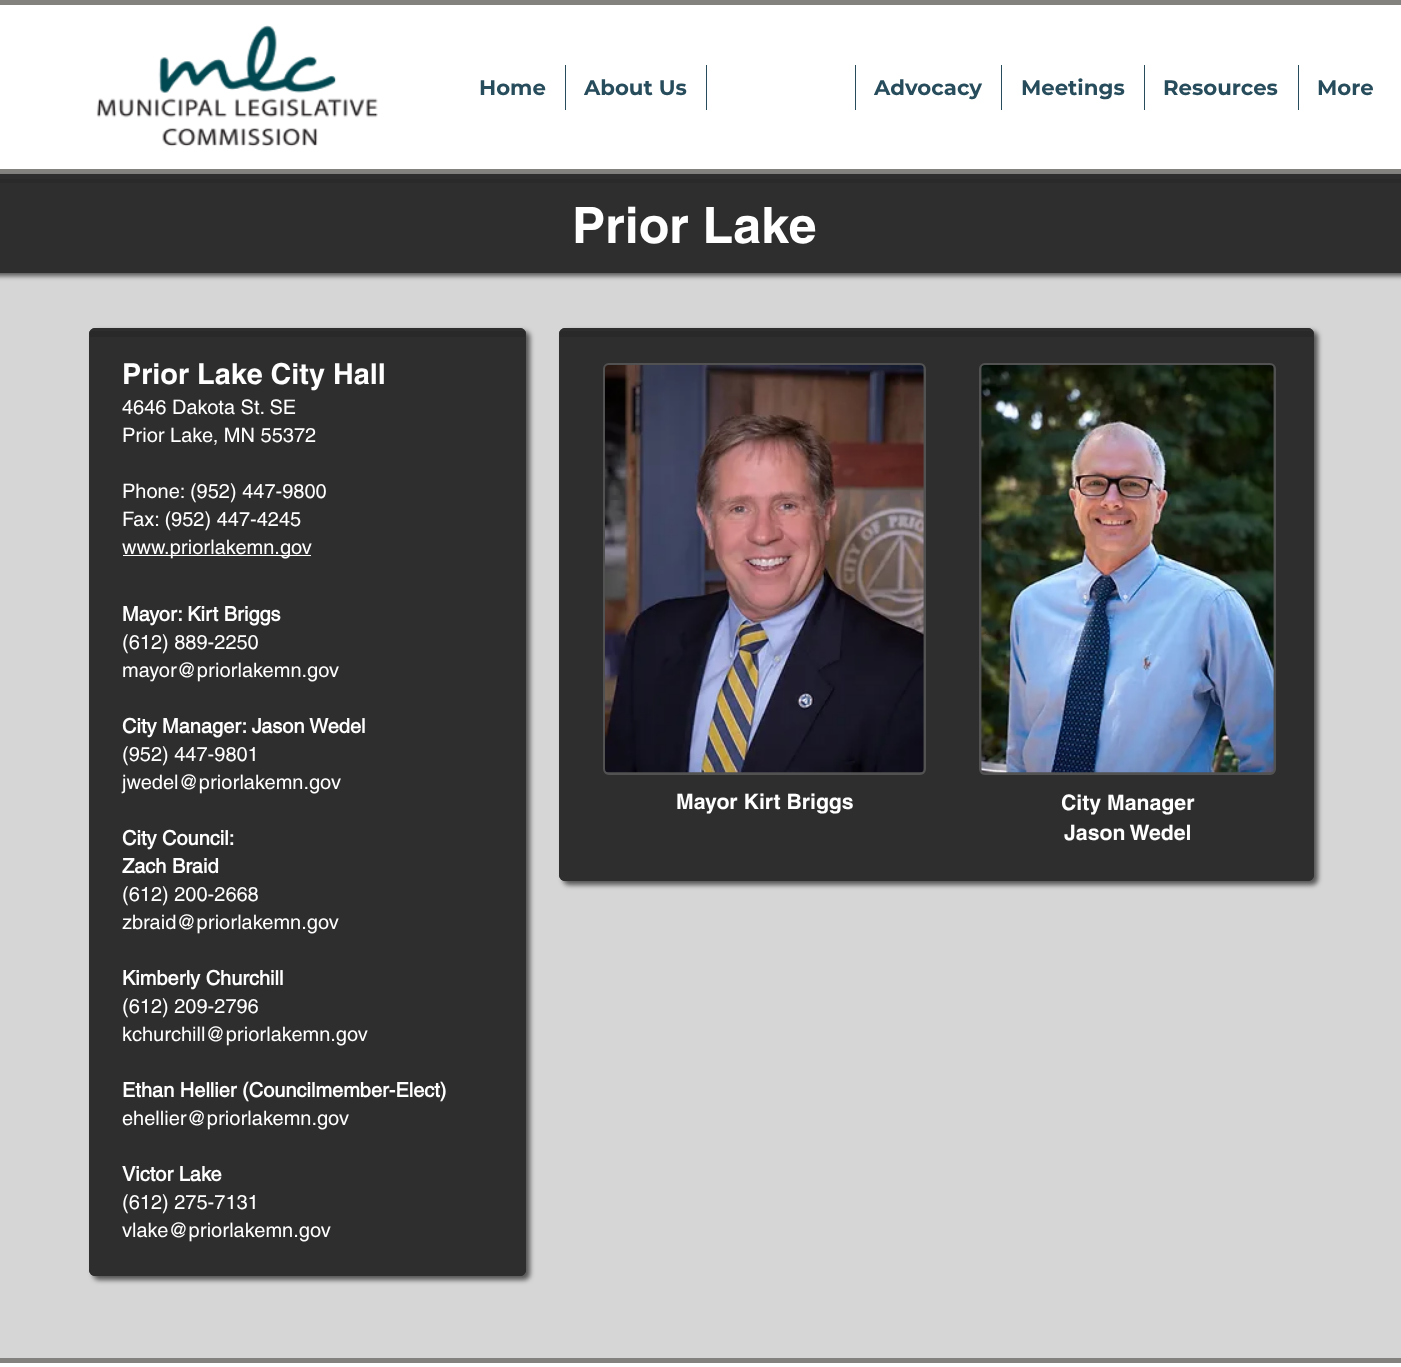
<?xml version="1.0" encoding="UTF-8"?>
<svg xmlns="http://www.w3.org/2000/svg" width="1401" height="1367">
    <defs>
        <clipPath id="clip1"><path d="M 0 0 H 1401 V 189 H 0 Z M 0 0 H 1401 V 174 H 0 Z" clip-rule="evenodd"/></clipPath>
        <filter id="blur1" x="-50%" y="-200%" width="200%" height="500%"><feGaussianBlur stdDeviation="3"/></filter>
        <filter id="blur2" x="-50%" y="-200%" width="200%" height="500%"><feGaussianBlur stdDeviation="2.5"/></filter>
    </defs>
    <rect width="100%" height="100%" fill="#E8E0D8"/>
    <g clip-path="url(#clip1)">
        <rect x="-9" y="-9" width="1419" height="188" fill="#000000" fill-opacity="0.7" filter="url(#blur1)"/>
    </g>
    <rect x="0" y="0" width="1401" height="5" fill="#84827F"/>
    <rect x="0" y="169" width="1401" height="5" fill="#5D5D5D" fill-opacity="0.72"/>
    <rect x="0" y="5" width="1401" height="164" fill="#FFFFFF"/>
    <image x="96" y="25" width="282" height="122" href="img_01.png"/>
    <text x="479" y="95" font-family="Montserrat" font-size="21.25" font-weight="700" fill="#274C5B">Home</text>
    <rect x="565" y="65" width="1" height="45" fill="#274C5B"/>
    <text x="584" y="95" font-family="Montserrat" font-size="21.25" font-weight="700" fill="#274C5B">About Us</text>
    <rect x="706" y="65" width="1" height="45" fill="#274C5B"/>
    <rect x="855" y="65" width="1" height="45" fill="#274C5B"/>
    <text x="874" y="95" font-family="Montserrat" font-size="21.25" font-weight="700" fill="#274C5B">Advocacy</text>
    <rect x="1001" y="65" width="1" height="45" fill="#274C5B"/>
    <text x="1021" y="95" font-family="Montserrat" font-size="21.25" font-weight="700" fill="#274C5B">Meetings</text>
    <rect x="1144" y="65" width="1" height="45" fill="#274C5B"/>
    <text x="1163" y="95" font-family="Montserrat" font-size="21.25" font-weight="700" fill="#274C5B">Resources</text>
    <rect x="1298" y="65" width="1" height="45" fill="#274C5B"/>
    <text x="1317" y="95" font-family="Montserrat" font-size="21.25" font-weight="700" fill="#274C5B">More</text>
    <rect x="0" y="273" width="1401" height="1085" fill="#D6D6D6"/>
    <rect x="-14" y="178" width="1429" height="98" rx="6" fill="#000000" fill-opacity="0.6" filter="url(#blur2)"/>
    <rect x="0" y="174" width="1401" height="99" fill="#2E2E2E"/>
    <rect x="0" y="179" width="1401" height="4" fill="#2A2A2A"/>
    <text x="572" y="243" font-family="helvetica" font-size="50" font-weight="700" fill="#FFFFFF">Prior Lake</text>
    <rect x="93" y="331" width="437" height="949" rx="6" fill="#000000" fill-opacity="0.6" filter="url(#blur2)"/>
    <rect x="89" y="328" width="437" height="948" rx="6" fill="#2E2E2E"/>
    <rect x="89" y="331" width="437" height="6" fill="#000000" fill-opacity="0.09"/>
    <rect x="89.5" y="328.5" width="436" height="947" rx="5.5" fill="none" stroke="#2E2E2E"/>
    <text x="122" y="384" font-family="helvetica" font-size="28.75" font-weight="700" fill="#FFFFFF">Prior Lake City Hall</text>
    <text font-family="helvetica" font-size="20" fill="#FFFFFF">
        <tspan x="122" y="414">4646 Dakota St. SE</tspan>
        <tspan x="122" y="442">Prior Lake, MN 55372</tspan>
    </text>
    <text font-family="helvetica" font-size="20" fill="#FFFFFF">
        <tspan x="122" y="498">Phone: (952) 447-9800</tspan>
        <tspan x="122" y="526">Fax: (952) 447-4245</tspan>
    </text>
    <rect x="123" y="555" width="188" height="1" fill="#FFFFFF"/>
    <text x="122" y="554" font-family="helvetica" font-size="20" fill="#FFFFFF">www.priorlakemn.gov</text>
    <text x="122" y="621" font-family="'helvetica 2'" font-size="20" font-weight="700" fill="#FFFFFF">Mayor: Kirt Briggs</text>
    <text font-family="helvetica" font-size="20" fill="#FFFFFF">
        <tspan x="122" y="649">(612) 889-2250</tspan>
        <tspan x="122" y="677">mayor@priorlakemn.gov</tspan>
    </text>
    <text x="122" y="733" font-family="'helvetica 2'" font-size="20" font-weight="700" fill="#FFFFFF">City Manager: Jason Wedel</text>
    <text font-family="helvetica" font-size="20" fill="#FFFFFF">
        <tspan x="122" y="761">(952) 447-9801</tspan>
        <tspan x="122" y="789">jwedel@priorlakemn.gov</tspan>
    </text>
    <text font-family="'helvetica 2'" font-size="20" font-weight="700" fill="#FFFFFF">
        <tspan x="122" y="845">City Council:</tspan>
        <tspan x="122" y="873">Zach Braid</tspan>
    </text>
    <text font-family="helvetica" font-size="20" fill="#FFFFFF">
        <tspan x="122" y="901">(612) 200-2668</tspan>
        <tspan x="122" y="929">zbraid@priorlakemn.gov</tspan>
    </text>
    <text x="122" y="985" font-family="'helvetica 2'" font-size="20" font-weight="700" fill="#FFFFFF">Kimberly Churchill</text>
    <text font-family="helvetica" font-size="20" fill="#FFFFFF">
        <tspan x="122" y="1013">(612) 209-2796</tspan>
        <tspan x="122" y="1041">kchurchill@priorlakemn.gov</tspan>
    </text>
    <text x="122" y="1097" font-family="'helvetica 2'" font-size="20" font-weight="700" fill="#FFFFFF">Ethan Hellier (Councilmember-Elect)</text>
    <text x="122" y="1125" font-family="helvetica" font-size="20" fill="#FFFFFF">ehellier@priorlakemn.gov</text>
    <text x="122" y="1181" font-family="'helvetica 2'" font-size="20" font-weight="700" fill="#FFFFFF">Victor Lake</text>
    <text font-family="helvetica" font-size="20" fill="#FFFFFF">
        <tspan x="122" y="1209">(612) 275-7131</tspan>
        <tspan x="122" y="1237">vlake@priorlakemn.gov</tspan>
    </text>
    <rect x="563" y="331" width="755" height="554" rx="6" fill="#000000" fill-opacity="0.6" filter="url(#blur2)"/>
    <rect x="559" y="328" width="755" height="553" rx="6" fill="#2E2E2E"/>
    <rect x="559" y="331" width="754" height="6" fill="#000000" fill-opacity="0.09"/>
    <rect x="559.5" y="328.5" width="754" height="552" rx="5.5" fill="none" stroke="#2E2E2E"/>
    <rect x="603" y="363" width="323" height="412" rx="6" fill="#464646"/>
    <rect x="604.5" y="364.5" width="320" height="409" rx="4.5" fill="none" stroke="#5D5D5D" stroke-opacity="0.5" stroke-width="3"/>
    <image x="605" y="365" width="319" height="408" href="img_02.png"/>
    <rect x="979" y="363" width="297" height="412" rx="6" fill="#464646"/>
    <rect x="980.5" y="364.5" width="294" height="409" rx="4.5" fill="none" stroke="#5D5D5D" stroke-opacity="0.5" stroke-width="3"/>
    <image x="981" y="365" width="293" height="408" href="img_03.png"/>
    <text x="676" y="809" font-family="helvetica" font-size="21.25" font-weight="700" fill="#FFFFFF">Mayor Kirt Briggs</text>
    <text x="1061" y="810" font-family="helvetica" font-size="21.25" font-weight="700" fill="#FFFFFF">City Manager</text>
    <text x="1064" y="840" font-family="helvetica" font-size="21.25" font-weight="700" fill="#FFFFFF">Jason Wedel</text>
    <rect x="0" y="1358" width="1401" height="5" fill="#84827F"/>
    <rect x="0" y="1363" width="1401" height="4" fill="#FFFFFF"/>
</svg>
